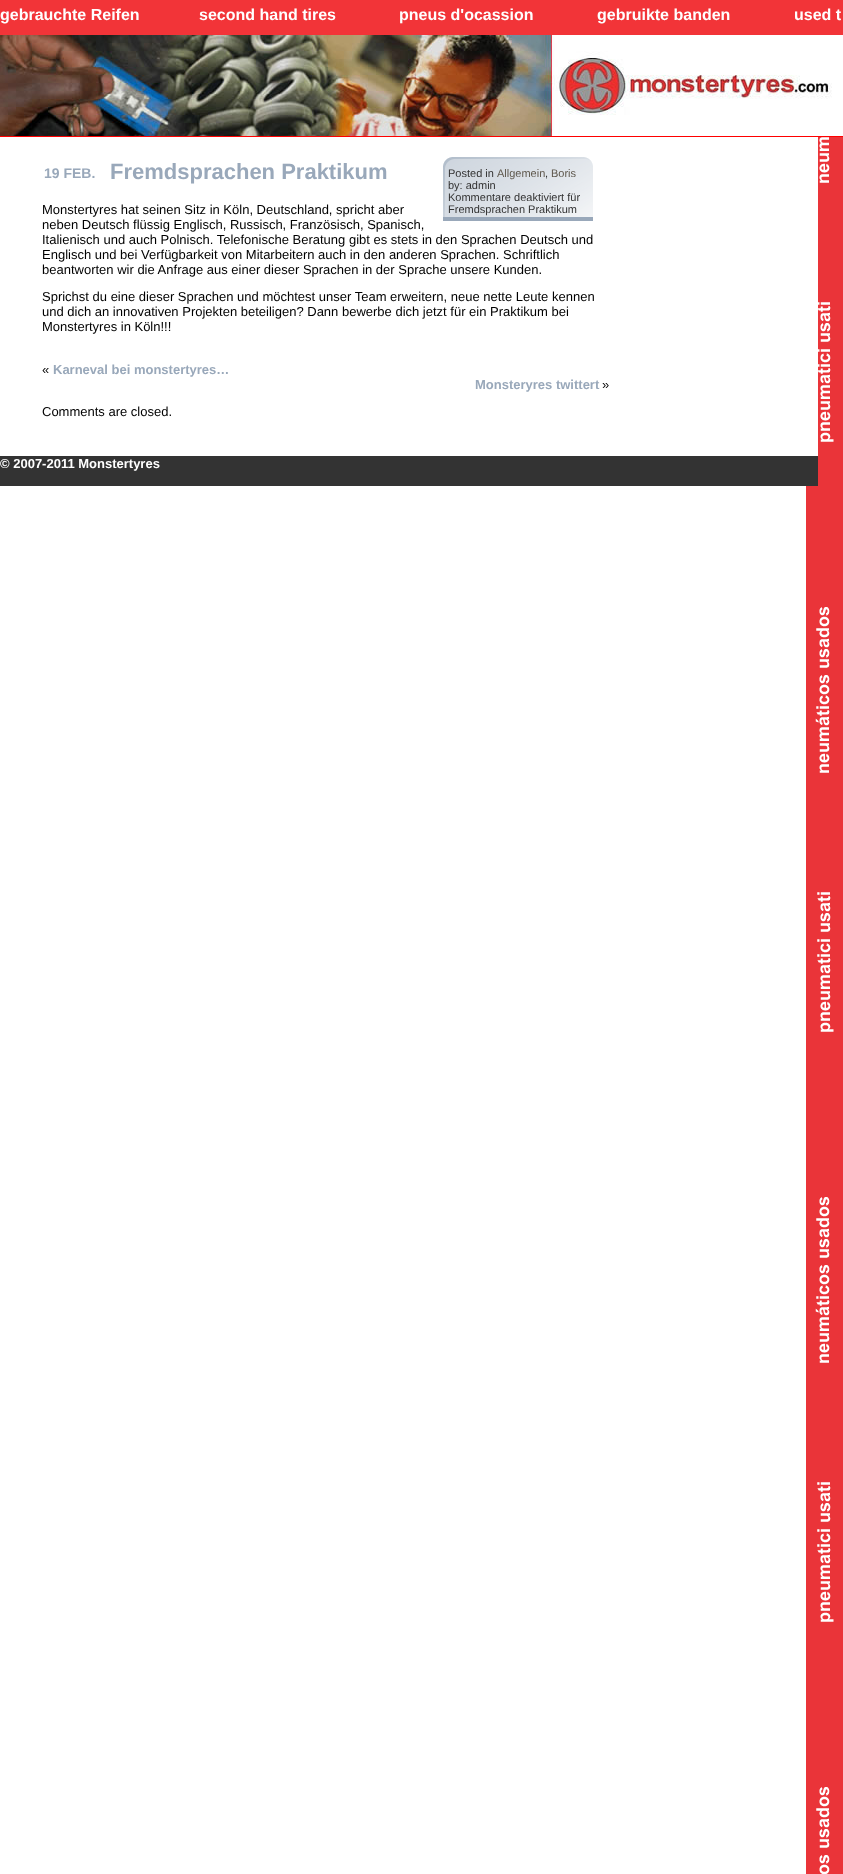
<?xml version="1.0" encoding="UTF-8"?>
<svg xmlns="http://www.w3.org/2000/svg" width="843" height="1874">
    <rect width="100%" height="100%" fill="#FFFFFF"/>
    <image x="806" y="137" width="37" height="1737" href="img_01.png"/>
    <rect x="0" y="0" width="843" height="35" fill="#F23438"/>
    <text x="0" y="20" font-family="Liberation Sans" font-size="16" font-weight="700" fill="#FFFFFF">gebrauchte Reifen</text>
    <text x="199" y="20" font-family="Liberation Sans" font-size="16" font-weight="700" fill="#FFFFFF">second hand tires</text>
    <text x="399" y="20" font-family="Liberation Sans" font-size="16" font-weight="700" fill="#FFFFFF">pneus d'ocassion</text>
    <text x="597" y="20" font-family="Liberation Sans" font-size="16" font-weight="700" fill="#FFFFFF">gebruikte banden</text>
    <text x="794" y="20" font-family="Liberation Sans" font-size="16" font-weight="700" fill="#FFFFFF">used t</text>
    <image x="0" y="35" width="843" height="101" href="img_02.png"/>
    <rect x="0" y="136" width="843" height="1" fill="#FF0000"/>
    <rect x="806" y="137" width="12" height="319" fill="#FFFFFF"/>
    <text x="44" y="178" font-family="Liberation Sans" font-size="14" font-weight="700" fill="#99A8BA">19 FEB.</text>
    <text x="110" y="179" font-family="Liberation Sans" font-size="22" font-weight="700" fill="#99A8BA">Fremdsprachen Praktikum</text>
    <image x="443" y="157" width="150" height="60" href="img_03.png"/>
    <rect x="443" y="217" width="150" height="4" fill="#99A8BA"/>
    <text x="448" y="177" font-family="Liberation Sans" font-size="11" fill="#333333">Posted in</text>
    <text x="497" y="177" font-family="Liberation Sans" font-size="11" fill="#5F584D">Allgemein</text>
    <text x="545" y="177" font-family="Liberation Sans" font-size="11" fill="#333333">,</text>
    <text x="551" y="177" font-family="Liberation Sans" font-size="11" fill="#5F584D">Boris</text>
    <text font-family="Liberation Sans" font-size="11" fill="#333333">
        <tspan x="448" y="189">by: admin</tspan>
        <tspan x="448" y="201">Kommentare deaktiviert für</tspan>
        <tspan x="448" y="213">Fremdsprachen Praktikum</tspan>
    </text>
    <text font-family="Liberation Sans" font-size="13" fill="#000000">
        <tspan x="42" y="214">Monstertyres hat seinen Sitz in Köln, Deutschland, spricht aber</tspan>
        <tspan x="42" y="229">neben Deutsch flüssig Englisch, Russisch, Französisch, Spanisch,</tspan>
        <tspan x="42" y="244">Italienisch und auch Polnisch. Telefonische Beratung gibt es stets in den Sprachen Deutsch und</tspan>
        <tspan x="42" y="259">Englisch und bei Verfügbarkeit von Mitarbeitern auch in den anderen Sprachen. Schriftlich</tspan>
        <tspan x="42" y="274">beantworten wir die Anfrage aus einer dieser Sprachen in der Sprache unsere Kunden.</tspan>
    </text>
    <text font-family="Liberation Sans" font-size="13" fill="#000000">
        <tspan x="42" y="301">Sprichst du eine dieser Sprachen und möchtest unser Team erweitern, neue nette Leute kennen</tspan>
        <tspan x="42" y="316">und dich an innovativen Projekten beteiligen? Dann bewerbe dich jetzt für ein Praktikum bei</tspan>
        <tspan x="42" y="331">Monstertyres in Köln!!!</tspan>
    </text>
    <text x="42" y="374" font-family="Liberation Sans" font-size="13" fill="#000000">«</text>
    <text x="53" y="374" font-family="Liberation Sans" font-size="13" font-weight="700" fill="#99A8BA">Karneval bei monstertyres…</text>
    <text x="475" y="389" font-family="Liberation Sans" font-size="13" font-weight="700" fill="#99A8BA">Monsteryres twittert</text>
    <text x="602" y="389" font-family="Liberation Sans" font-size="13" fill="#000000">»</text>
    <text x="42" y="416" font-family="Liberation Sans" font-size="13" fill="#000000">Comments are closed.</text>
    <rect x="0" y="456" width="818" height="30" fill="#333333"/>
    <text x="0" y="468" font-family="Liberation Sans" font-size="13" font-weight="700" fill="#FFFFFF">© 2007-2011 Monstertyres</text>
</svg>
